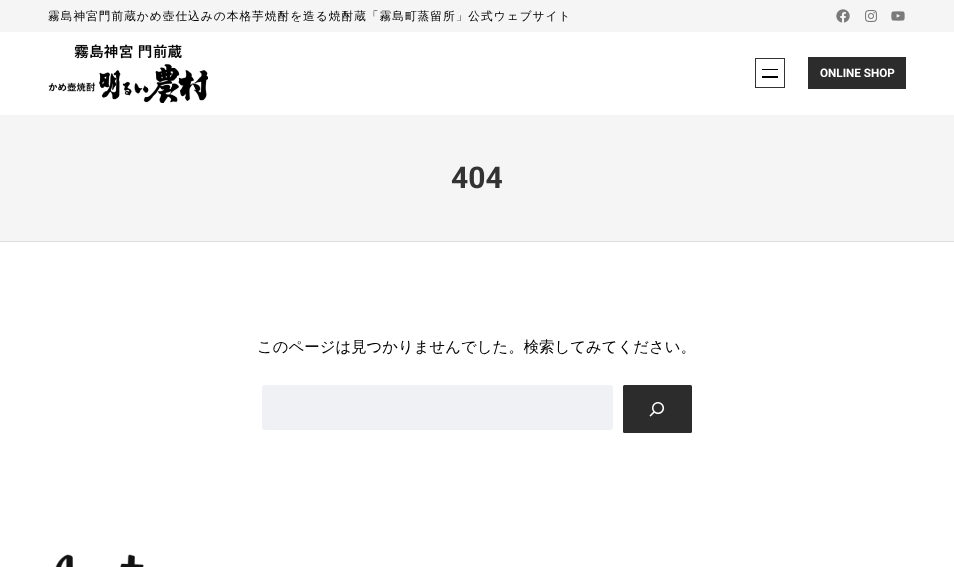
<?xml version="1.0" encoding="UTF-8"?>
<svg xmlns="http://www.w3.org/2000/svg" width="954" height="567">
    <rect width="100%" height="100%" fill="#FFFFFF"/>
    <rect x="0" y="0" width="954" height="32" fill="#F5F5F5"/>
    <text x="48" y="20" font-family="WenQuanYi Zen Hei" font-size="11.7" font-weight="500" letter-spacing="1" fill="#000000">霧島神宮門前蔵かめ壺仕込みの本格芋焼酎を造る焼酎蔵「霧島町蒸留所」公式ウェブサイト</text>
    <image x="836" y="9" width="14" height="14" href="img_01.png"/>
    <image x="865" y="10" width="12" height="12" href="img_02.png"/>
    <image x="891" y="11" width="14" height="10" href="img_03.png"/>
    <image x="48" y="44" width="160" height="59" href="img_04.png"/>
    <rect x="755.5" y="58.5" width="29" height="29" fill="none" stroke="#333333"/>
    <rect x="762" y="69" width="16" height="1" fill="#000000"/>
    <rect x="762" y="76" width="16" height="2" fill="#000000"/>
    <rect x="808" y="57" width="98" height="32" fill="#2C2C2C"/>
    <text x="820" y="77" font-family="Roboto" font-size="11.7" font-weight="700" fill="#FFFFFF">ONLINE SHOP</text>
    <rect x="0" y="115" width="954" height="126" fill="#F5F5F5"/>
    <rect x="0" y="241" width="954" height="1" fill="#DDDDDD"/>
    <text x="451" y="188" font-family="Roboto" font-size="30" font-weight="700" fill="#333333">404</text>
    <text x="257" y="352" font-family="WenQuanYi Zen Hei" font-size="15.4" font-weight="500" fill="#000000">このページは見つかりませんでした。検索してみてください。</text>
    <rect x="262" y="385" width="351" height="45" rx="3" fill="#EFF1F5"/>
    <rect x="623" y="385" width="69" height="48" rx="1.5" fill="#2C2C2C"/>
    <image x="649" y="402" width="16" height="15" href="img_05.png"/>
    <image x="55" y="554" width="89" height="13" href="img_06.png"/>
</svg>
